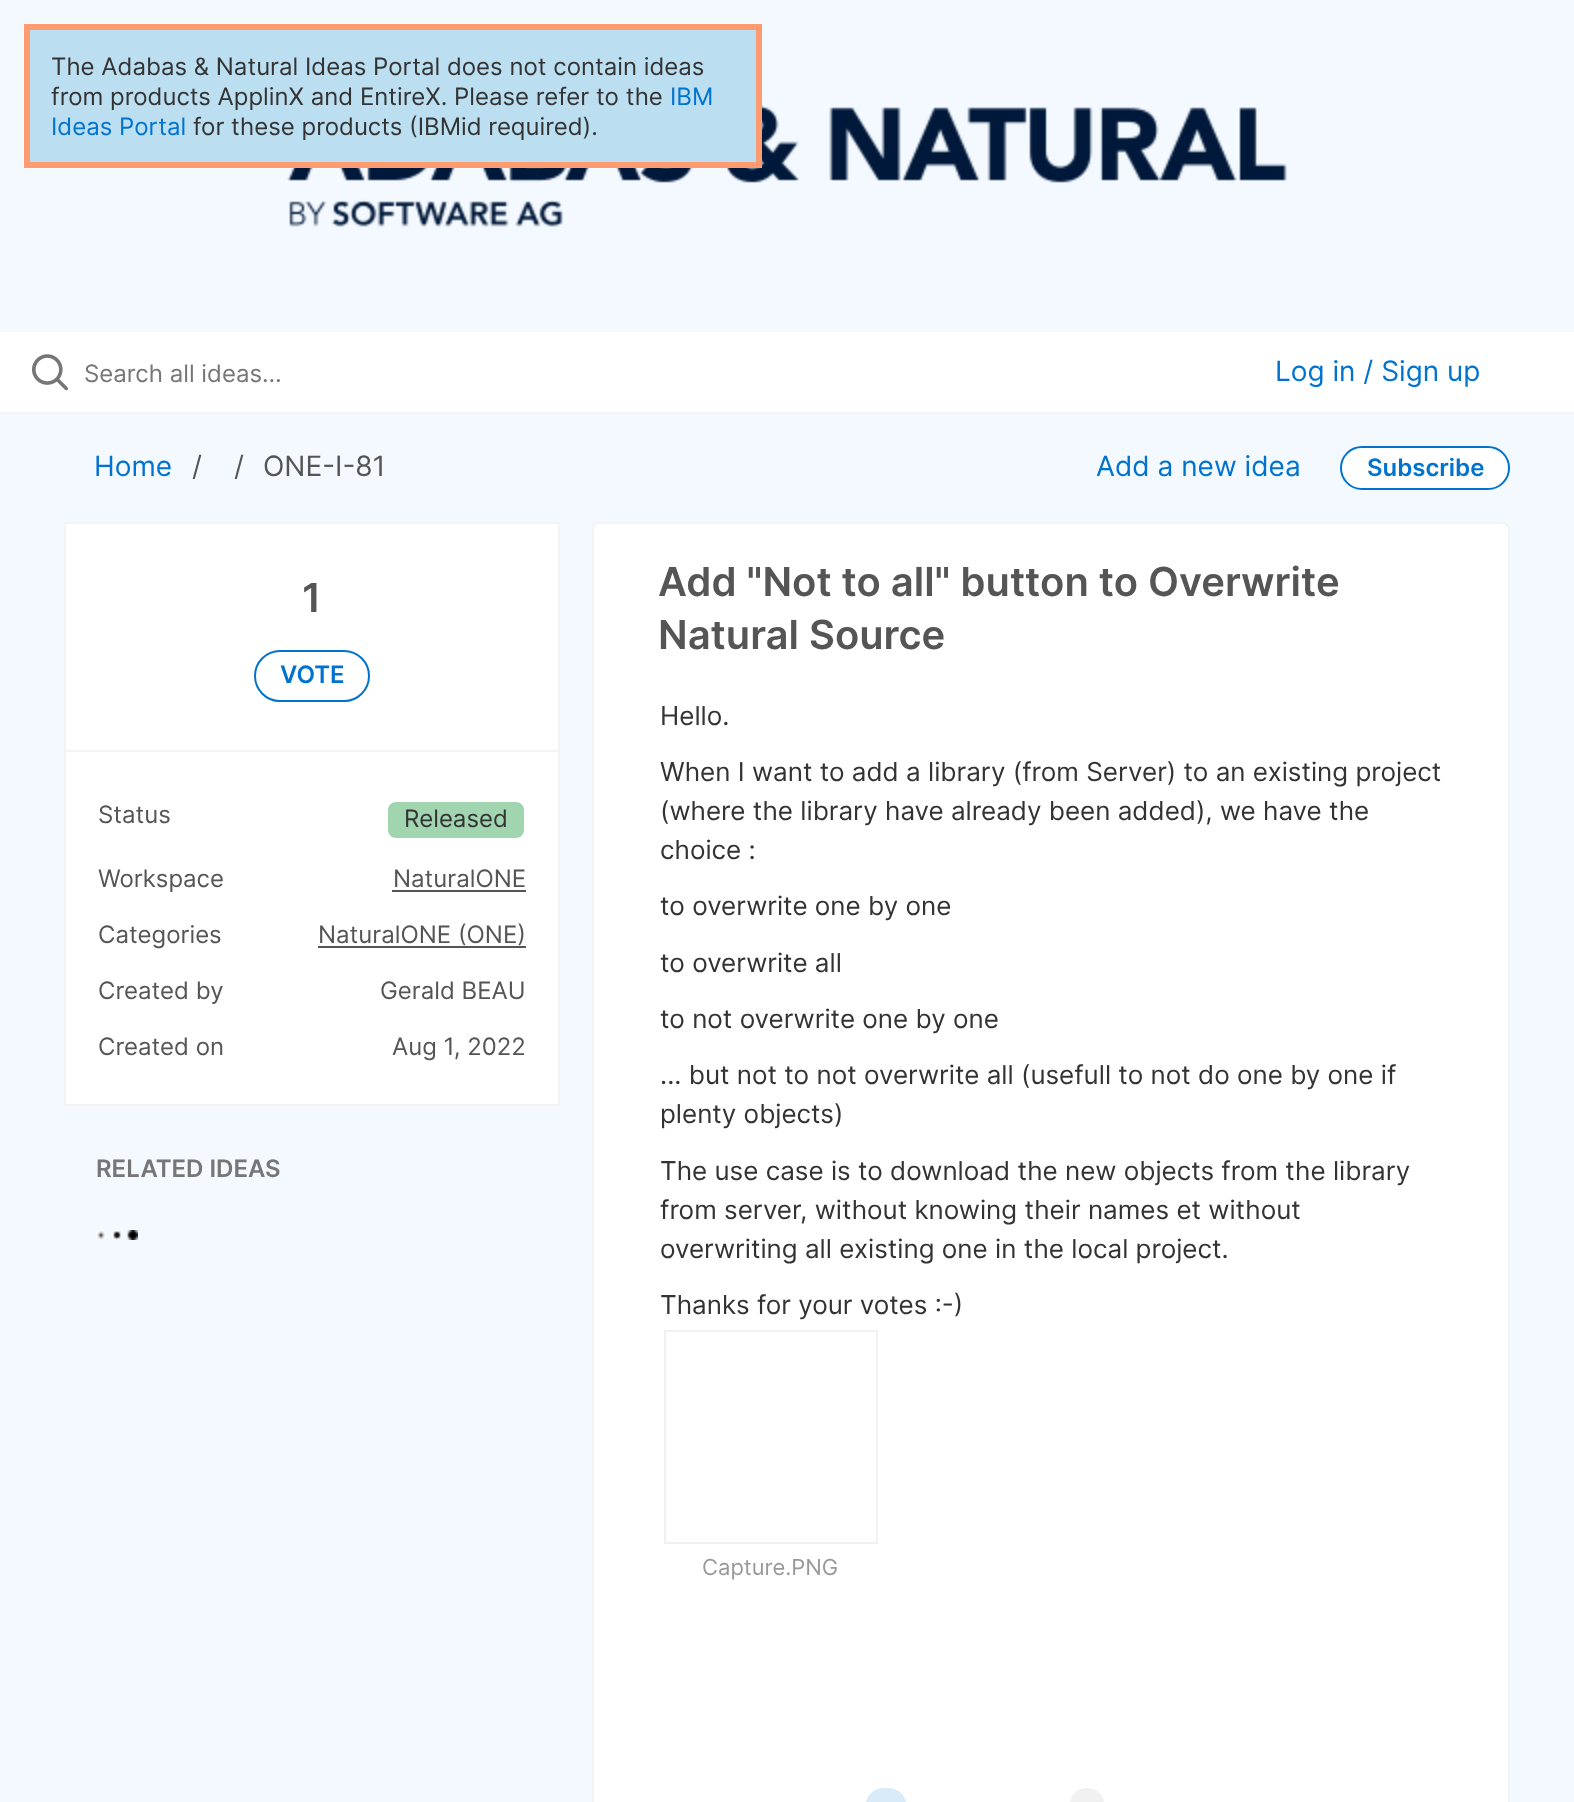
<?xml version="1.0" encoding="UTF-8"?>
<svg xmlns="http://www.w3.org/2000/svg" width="1574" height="1802">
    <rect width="100%" height="100%" fill="#F3F9FE"/>
    <image x="287" y="105" width="1000" height="122" href="img_01.png"/>
    <rect x="27" y="27" width="732" height="138" fill="#BBDEF0" stroke="#FF9B71" stroke-width="6"/>
    <text font-family="Inter" font-size="24" fill="#333333">
        <tspan x="51" y="75">The Adabas &amp; Natural Ideas Portal does not contain ideas</tspan>
        <tspan x="51" y="105">from products ApplinX and EntireX. Please refer to the</tspan>
    </text>
    <text x="670" y="105" font-family="Inter" font-size="24" fill="#0073CF">IBM</text>
    <text x="51" y="135" font-family="Inter" font-size="24" fill="#0073CF">Ideas Portal</text>
    <text x="193" y="135" font-family="Inter" font-size="24" fill="#333333">for these products (IBMid required).</text>
    <rect x="0" y="332" width="1574" height="80" fill="#FFFFFF"/>
    <rect x="0" y="412" width="1574" height="2" fill="#F4F4F4"/>
    <image x="32" y="354" width="36" height="37" href="img_02.png"/>
    <text x="84" y="382" font-family="Inter" font-size="24" fill="#767676">Search all ideas…</text>
    <text x="1275" y="381" font-family="Inter" font-size="28" fill="#0073CF">Log in / Sign up</text>
    <text x="94" y="476" font-family="Inter" font-size="28" fill="#0073CF">Home</text>
    <text x="192" y="476" font-family="Inter" font-size="28" fill="#555555">/</text>
    <text x="234" y="476" font-family="Inter" font-size="28" fill="#555555">/</text>
    <text x="263" y="476" font-family="Inter" font-size="28" fill="#555555">ONE-I-81</text>
    <text x="1096" y="476" font-family="Inter" font-size="28" fill="#0073CF">Add a new idea</text>
    <rect x="1341" y="447" width="168" height="42" rx="21" fill="#FFFFFF" stroke="#0073CF" stroke-width="2"/>
    <text x="1367" y="476" font-family="Inter" font-size="24" font-weight="600" fill="#0073CF">Subscribe</text>
    <rect x="65" y="523" width="494" height="582" fill="#FFFFFF" stroke="#F4F4F4" stroke-width="2"/>
    <text x="302" y="612" font-family="Inter" font-size="40" font-weight="600" fill="#555555">1</text>
    <rect x="255" y="651" width="114" height="50" rx="25" fill="none" stroke="#0073CF" stroke-width="2"/>
    <text x="280" y="683" font-family="Inter" font-size="24" font-weight="600" fill="#0073CF">VOTE</text>
    <rect x="66" y="750" width="492" height="2" fill="#F4F4F4"/>
    <text x="98" y="823" font-family="Inter" font-size="24" fill="#555555">Status</text>
    <rect x="388" y="802" width="136" height="36" rx="8" fill="#A0D5B0"/>
    <text x="404" y="827" font-family="Inter" font-size="24" fill="#333333">Released</text>
    <text x="98" y="887" font-family="Inter" font-size="24" fill="#555555">Workspace</text>
    <text x="393" y="887" font-family="Inter" font-size="24" fill="#555555">NaturalONE</text>
    <rect x="392" y="890" width="134" height="2" fill="#555555"/>
    <text x="98" y="943" font-family="Inter" font-size="24" fill="#555555">Categories</text>
    <text x="318" y="943" font-family="Inter" font-size="24" fill="#555555">NaturalONE (ONE)</text>
    <rect x="318" y="946" width="208" height="2" fill="#555555"/>
    <text x="98" y="999" font-family="Inter" font-size="24" fill="#555555">Created by</text>
    <text x="380" y="999" font-family="Inter" font-size="24" fill="#555555">Gerald BEAU</text>
    <text x="98" y="1055" font-family="Inter" font-size="24" fill="#555555">Created on</text>
    <text x="392" y="1055" font-family="Inter" font-size="24" fill="#555555">Aug 1, 2022</text>
    <text x="96" y="1177" font-family="Inter" font-size="24" font-weight="600" fill="#767676">RELATED IDEAS</text>
    <image x="96" y="1230" width="42" height="10" href="img_03.png"/>
    <rect x="593" y="523" width="916" height="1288" rx="7" fill="#FFFFFF" stroke="#F4F4F4" stroke-width="2"/>
    <text font-family="Inter" font-size="40" font-weight="600" fill="#555555">
        <tspan x="658" y="596">Add "Not to all" button to Overwrite</tspan>
        <tspan x="658" y="649">Natural Source</tspan>
    </text>
    <text x="660" y="725" font-family="Inter" font-size="26" fill="#333333">Hello.</text>
    <text font-family="Inter" font-size="26" fill="#333333">
        <tspan x="660" y="781">When I want to add a library (from Server) to an existing project</tspan>
        <tspan x="660" y="820">(where the library have already been added), we have the</tspan>
        <tspan x="660" y="859">choice :</tspan>
    </text>
    <text x="660" y="915" font-family="Inter" font-size="26" fill="#333333">to overwrite one by one</text>
    <text x="660" y="972" font-family="Inter" font-size="26" fill="#333333">to overwrite all</text>
    <text x="660" y="1028" font-family="Inter" font-size="26" fill="#333333">to not overwrite one by one</text>
    <text font-family="Inter" font-size="26" fill="#333333">
        <tspan x="660" y="1084">... but not to not overwrite all (usefull to not do one by one if</tspan>
        <tspan x="660" y="1123">plenty objects)</tspan>
    </text>
    <text font-family="Inter" font-size="26" fill="#333333">
        <tspan x="660" y="1180">The use case is to download the new objects from the library</tspan>
        <tspan x="660" y="1219">from server, without knowing their names et without</tspan>
        <tspan x="660" y="1258">overwriting all existing one in the local project.</tspan>
    </text>
    <text x="660" y="1314" font-family="Inter" font-size="26" fill="#333333">Thanks for your votes :-)</text>
    <rect x="665" y="1331" width="212" height="212" fill="none" stroke="#F1F1F1" stroke-width="2"/>
    <text x="702" y="1575" font-family="Inter" font-size="22" fill="#999999">Capture.PNG</text>
    <rect x="866" y="1788" width="40" height="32" rx="18" fill="#D9EAF8"/>
    <rect x="1070" y="1788" width="34" height="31" rx="17" fill="#F1F1F1"/>
</svg>
